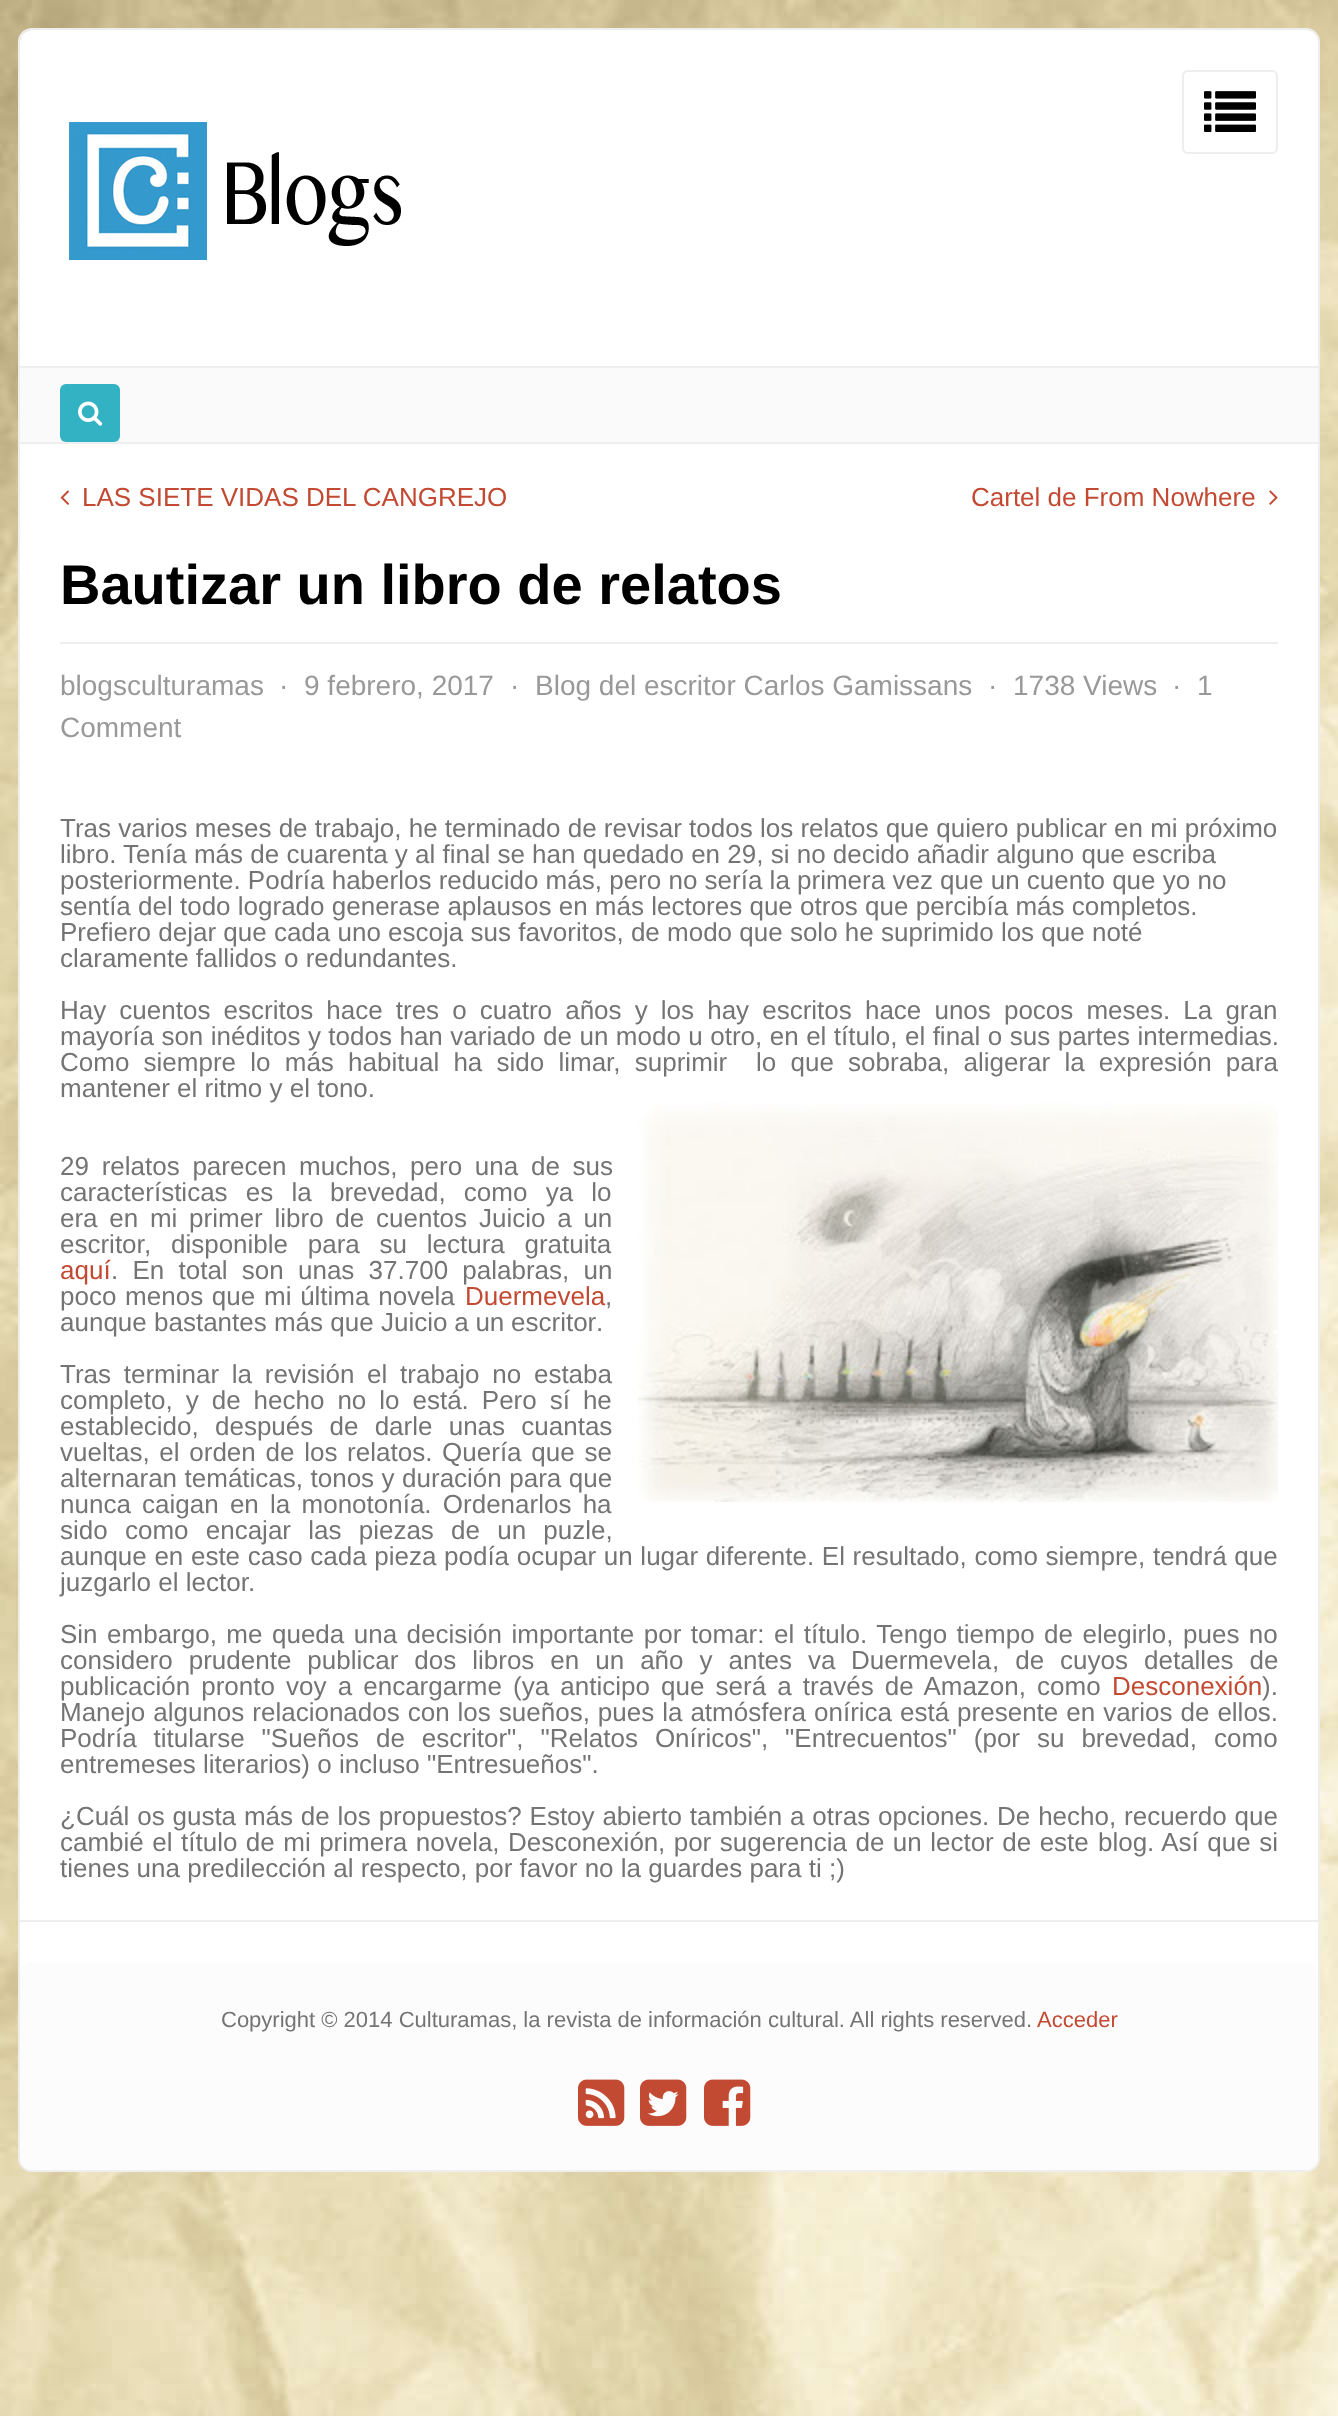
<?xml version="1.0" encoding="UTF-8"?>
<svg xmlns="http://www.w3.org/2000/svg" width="1338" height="2416">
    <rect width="100%" height="100%" fill="#FFFFFF"/>
    <image x="0" y="0" width="1338" height="2416" href="img_01.png"/>
    <rect x="19" y="29" width="1300" height="2142" rx="13" fill="none" stroke="#EEEEEE" stroke-width="2"/>
    <rect x="20" y="30" width="1298" height="2140" rx="12" fill="#FFFFFF"/>
    <rect x="1183" y="71" width="94" height="82" rx="5" fill="none" stroke="#EEEEEE" stroke-width="2"/>
    <image x="1204" y="91" width="52" height="41" href="img_02.png"/>
    <image x="69" y="122" width="332" height="138" href="img_03.png"/>
    <rect x="20" y="368" width="1298" height="74" fill="#FAFAFA"/>
    <rect x="20" y="366" width="1298" height="2" fill="#EEEEEE"/>
    <rect x="20" y="442" width="1298" height="2" fill="#EEEEEE"/>
    <rect x="60" y="384" width="60" height="58" rx="6" fill="#32B2C3"/>
    <image x="78" y="401" width="25" height="25" href="img_04.png"/>
    <image x="60" y="490" width="10" height="15" href="img_05.png"/>
    <text x="82" y="506" font-family="Liberation Sans" font-size="26" fill="#C34A32">LAS SIETE VIDAS DEL CANGREJO</text>
    <text x="971" y="506" font-family="Liberation Sans" font-size="26" fill="#C34A32">Cartel de From Nowhere</text>
    <image x="1269" y="490" width="9" height="15" href="img_06.png"/>
    <rect x="60" y="642" width="1218" height="2" fill="#EEEEEE"/>
    <text x="60" y="604" font-family="Liberation Sans" font-size="56" font-weight="700" fill="#000000">Bautizar un libro de relatos</text>
    <text x="60" y="695" font-family="Liberation Sans" font-size="28" fill="#999999">blogsculturamas</text>
    <text x="279" y="695" font-family="Liberation Sans" font-size="28" fill="#999999">·</text>
    <text x="304" y="695" font-family="Liberation Sans" font-size="28" fill="#999999">9 febrero, 2017</text>
    <text x="510" y="695" font-family="Liberation Sans" font-size="28" fill="#999999">·</text>
    <text x="535" y="695" font-family="Liberation Sans" font-size="28" fill="#999999">Blog del escritor Carlos Gamissans</text>
    <text x="988" y="695" font-family="Liberation Sans" font-size="28" fill="#999999">·</text>
    <text x="1013" y="695" font-family="Liberation Sans" font-size="28" fill="#999999">1738 Views</text>
    <text x="1172" y="695" font-family="Liberation Sans" font-size="28" fill="#999999">·</text>
    <text x="1197" y="695" font-family="Liberation Sans" font-size="28" fill="#999999">1</text>
    <text x="60" y="737" font-family="Liberation Sans" font-size="28" fill="#999999">Comment</text>
    <text font-family="Liberation Sans" font-size="26" fill="#747474">
        <tspan x="60" y="837">Tras varios meses de trabajo, he terminado de revisar todos los relatos que quiero publicar en mi próximo</tspan>
        <tspan x="60" y="863">libro. Tenía más de cuarenta y al final se han quedado en 29, si no decido añadir alguno que escriba</tspan>
        <tspan x="60" y="889">posteriormente. Podría haberlos reducido más, pero no sería la primera vez que un cuento que yo no</tspan>
        <tspan x="60" y="915">sentía del todo logrado generase aplausos en más lectores que otros que percibía más completos.</tspan>
        <tspan x="60" y="941">Prefiero dejar que cada uno escoja sus favoritos, de modo que solo he suprimido los que noté</tspan>
        <tspan x="60" y="967">claramente fallidos o redundantes.</tspan>
    </text>
    <text font-family="Liberation Sans" font-size="26" fill="#747474">
        <tspan x="60" y="1019" word-spacing="5.9">Hay cuentos escritos hace tres o cuatro años y los hay escritos hace unos pocos meses. La gran</tspan>
        <tspan x="60" y="1045" word-spacing="0.25">mayoría son inéditos y todos han variado de un modo u otro, en el título, el final o sus partes intermedias.</tspan>
        <tspan x="60" y="1071" word-spacing="7">Como siempre lo más habitual ha sido limar, suprimir</tspan>
    </text>
    <text x="756" y="1071" word-spacing="7" font-family="Liberation Sans" font-size="26" fill="#747474">lo que sobraba, aligerar la expresión para</text>
    <text x="60" y="1097" font-family="Liberation Sans" font-size="26" fill="#747474">mantener el ritmo y el tono.</text>
    <text font-family="Liberation Sans" font-size="26" fill="#747474">
        <tspan x="60" y="1175" word-spacing="5.5">29 relatos parecen muchos, pero una de sus</tspan>
        <tspan x="60" y="1201" word-spacing="11">características es la brevedad, como ya lo</tspan>
        <tspan x="60" y="1227" word-spacing="4.5">era en mi primer libro de cuentos</tspan>
    </text>
    <text x="479" y="1227" word-spacing="4.5" font-family="Liberation Sans" font-size="26" fill="#747474">Juicio a un</text>
    <text x="60" y="1253" font-family="Liberation Sans" font-size="26" fill="#747474">escritor</text>
    <text x="144" y="1253" word-spacing="12.5" font-family="Liberation Sans" font-size="26" fill="#747474">, disponible para su lectura gratuita</text>
    <text x="60" y="1279" font-family="Liberation Sans" font-size="26" fill="#C34A32">aquí</text>
    <text x="111" y="1279" word-spacing="7" font-family="Liberation Sans" font-size="26" fill="#747474">. En total son unas 37.700 palabras, un</text>
    <text x="60" y="1305" word-spacing="1.5" font-family="Liberation Sans" font-size="26" fill="#747474">poco menos que mi última novela</text>
    <text x="465" y="1305" font-family="Liberation Sans" font-size="26" fill="#C34A32">Duermevela</text>
    <text x="605" y="1305" font-family="Liberation Sans" font-size="26" fill="#747474">,</text>
    <text x="60" y="1331" font-family="Liberation Sans" font-size="26" fill="#747474">aunque bastantes más que</text>
    <text x="381" y="1331" word-spacing="-0.5" font-family="Liberation Sans" font-size="26" fill="#747474">Juicio a un escritor</text>
    <text x="596" y="1331" font-family="Liberation Sans" font-size="26" fill="#747474">.</text>
    <image x="638" y="1102" width="640" height="400" href="img_07.png"/>
    <text font-family="Liberation Sans" font-size="26" fill="#747474">
        <tspan x="60" y="1383" word-spacing="5.5">Tras terminar la revisión el trabajo no estaba</tspan>
        <tspan x="60" y="1409" word-spacing="5.75">completo, y de hecho no lo está. Pero sí he</tspan>
        <tspan x="60" y="1435" word-spacing="9">establecido, después de darle unas cuantas</tspan>
        <tspan x="60" y="1461" word-spacing="2.5">vueltas, el orden de los relatos. Quería que se</tspan>
        <tspan x="60" y="1487" word-spacing="0.25">alternaran temáticas, tonos y duración para que</tspan>
        <tspan x="60" y="1513" word-spacing="4">nunca caigan en la monotonía. Ordenarlos ha</tspan>
        <tspan x="60" y="1539" word-spacing="10">sido como encajar las piezas de un puzle,</tspan>
        <tspan x="60" y="1565" word-spacing="0.4">aunque en este caso cada pieza podía ocupar un lugar diferente. El resultado, como siempre, tendrá que</tspan>
        <tspan x="60" y="1591">juzgarlo el lector.</tspan>
    </text>
    <text font-family="Liberation Sans" font-size="26" fill="#747474">
        <tspan x="60" y="1643" word-spacing="2.25">Sin embargo, me queda una decisión importante por tomar: el título. Tengo tiempo de elegirlo, pues no</tspan>
        <tspan x="60" y="1669" word-spacing="8.75">considero prudente publicar dos libros en un año y antes va</tspan>
    </text>
    <text x="851" y="1669" font-family="Liberation Sans" font-size="26" fill="#747474">Duermevela</text>
    <text x="992" y="1669" word-spacing="8.75" font-family="Liberation Sans" font-size="26" fill="#747474">, de cuyos detalles de</text>
    <text x="60" y="1695" word-spacing="3.9" font-family="Liberation Sans" font-size="26" fill="#747474">publicación pronto voy a encargarme (ya anticipo que será a través de Amazon, como</text>
    <text x="1112" y="1695" font-family="Liberation Sans" font-size="26" fill="#C34A32">Desconexión</text>
    <text x="1262" y="1695" font-family="Liberation Sans" font-size="26" fill="#747474">).</text>
    <text font-family="Liberation Sans" font-size="26" fill="#747474">
        <tspan x="60" y="1721" word-spacing="0.75">Manejo algunos relacionados con los sueños, pues la atmósfera onírica está presente en varios de ellos.</tspan>
        <tspan x="60" y="1747" word-spacing="9.75">Podría titularse "Sueños de escritor", "Relatos Oníricos", "Entrecuentos" (por su brevedad, como</tspan>
        <tspan x="60" y="1773">entremeses literarios) o incluso "Entresueños".</tspan>
    </text>
    <text font-family="Liberation Sans" font-size="26" fill="#747474">
        <tspan x="60" y="1825" word-spacing="0.6">¿Cuál os gusta más de los propuestos? Estoy abierto también a otras opciones. De hecho, recuerdo que</tspan>
        <tspan x="60" y="1851" word-spacing="1.25">cambié el título de mi primera novela,</tspan>
    </text>
    <text x="508" y="1851" font-family="Liberation Sans" font-size="26" fill="#747474">Desconexión</text>
    <text x="658" y="1851" word-spacing="1.25" font-family="Liberation Sans" font-size="26" fill="#747474">, por sugerencia de un lector de este</text>
    <text x="1098" y="1851" font-family="Liberation Sans" font-size="26" fill="#747474">blog</text>
    <text x="1147" y="1851" word-spacing="1.25" font-family="Liberation Sans" font-size="26" fill="#747474">. Así que si</text>
    <text x="60" y="1877" font-family="Liberation Sans" font-size="26" fill="#747474">tienes una predilección al respecto, por favor no la guardes para ti ;)</text>
    <rect x="20" y="1920" width="1298" height="2" fill="#EEEEEE"/>
    <rect x="20" y="1962" width="1298" height="208" rx="12" fill="#FCFCFC"/>
    <text x="221" y="2027" font-family="Liberation Sans" font-size="22" fill="#747474">Copyright © 2014 Culturamas, la revista de información cultural. All rights reserved.</text>
    <text x="1037" y="2027" font-family="Liberation Sans" font-size="22" fill="#C34A32">Acceder</text>
    <image x="578" y="2079" width="47" height="47" href="img_08.png"/>
    <image x="640" y="2079" width="47" height="47" href="img_09.png"/>
    <image x="704" y="2079" width="47" height="47" href="img_10.png"/>
</svg>
